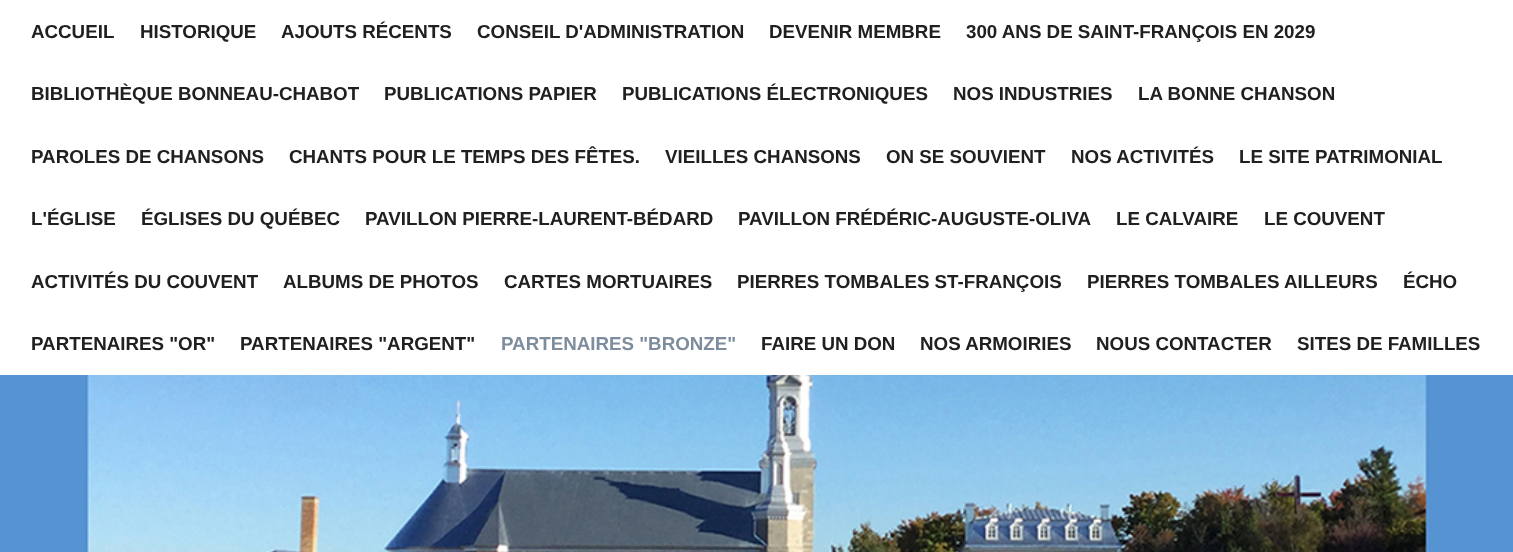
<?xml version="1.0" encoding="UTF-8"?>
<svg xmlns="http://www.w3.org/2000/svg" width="1513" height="552">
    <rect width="100%" height="100%" fill="#FFFFFF"/>
    <text x="31" y="38" font-family="Liberation Sans" font-size="18.75" font-weight="700" fill="#202020">ACCUEIL</text>
    <text x="140" y="38" font-family="Liberation Sans" font-size="18.75" font-weight="700" fill="#202020">HISTORIQUE</text>
    <text x="281" y="38" font-family="Liberation Sans" font-size="18.75" font-weight="700" fill="#202020">AJOUTS RÉCENTS</text>
    <text x="477" y="38" font-family="Liberation Sans" font-size="18.75" font-weight="700" fill="#202020">CONSEIL D'ADMINISTRATION</text>
    <text x="769" y="38" font-family="Liberation Sans" font-size="18.75" font-weight="700" fill="#202020">DEVENIR MEMBRE</text>
    <text x="966" y="38" font-family="Liberation Sans" font-size="18.75" font-weight="700" fill="#202020">300 ANS DE SAINT-FRANÇOIS EN 2029</text>
    <text x="31" y="100" font-family="Liberation Sans" font-size="18.75" font-weight="700" fill="#202020">BIBLIOTHÈQUE BONNEAU-CHABOT</text>
    <text x="384" y="100" font-family="Liberation Sans" font-size="18.75" font-weight="700" fill="#202020">PUBLICATIONS PAPIER</text>
    <text x="622" y="100" font-family="Liberation Sans" font-size="18.75" font-weight="700" fill="#202020">PUBLICATIONS ÉLECTRONIQUES</text>
    <text x="953" y="100" font-family="Liberation Sans" font-size="18.75" font-weight="700" fill="#202020">NOS INDUSTRIES</text>
    <text x="1138" y="100" font-family="Liberation Sans" font-size="18.75" font-weight="700" fill="#202020">LA BONNE CHANSON</text>
    <text x="31" y="163" font-family="Liberation Sans" font-size="18.75" font-weight="700" fill="#202020">PAROLES DE CHANSONS</text>
    <text x="289" y="163" font-family="Liberation Sans" font-size="18.75" font-weight="700" fill="#202020">CHANTS POUR LE TEMPS DES FÊTES.</text>
    <text x="665" y="163" font-family="Liberation Sans" font-size="18.75" font-weight="700" fill="#202020">VIEILLES CHANSONS</text>
    <text x="886" y="163" font-family="Liberation Sans" font-size="18.75" font-weight="700" fill="#202020">ON SE SOUVIENT</text>
    <text x="1071" y="163" font-family="Liberation Sans" font-size="18.75" font-weight="700" fill="#202020">NOS ACTIVITÉS</text>
    <text x="1239" y="163" font-family="Liberation Sans" font-size="18.75" font-weight="700" fill="#202020">LE SITE PATRIMONIAL</text>
    <text x="31" y="225" font-family="Liberation Sans" font-size="18.75" font-weight="700" fill="#202020">L'ÉGLISE</text>
    <text x="141" y="225" font-family="Liberation Sans" font-size="18.75" font-weight="700" fill="#202020">ÉGLISES DU QUÉBEC</text>
    <text x="365" y="225" font-family="Liberation Sans" font-size="18.75" font-weight="700" fill="#202020">PAVILLON PIERRE-LAURENT-BÉDARD</text>
    <text x="738" y="225" font-family="Liberation Sans" font-size="18.75" font-weight="700" fill="#202020">PAVILLON FRÉDÉRIC-AUGUSTE-OLIVA</text>
    <text x="1116" y="225" font-family="Liberation Sans" font-size="18.75" font-weight="700" fill="#202020">LE CALVAIRE</text>
    <text x="1264" y="225" font-family="Liberation Sans" font-size="18.75" font-weight="700" fill="#202020">LE COUVENT</text>
    <text x="31" y="288" font-family="Liberation Sans" font-size="18.75" font-weight="700" fill="#202020">ACTIVITÉS DU COUVENT</text>
    <text x="283" y="288" font-family="Liberation Sans" font-size="18.75" font-weight="700" fill="#202020">ALBUMS DE PHOTOS</text>
    <text x="504" y="288" font-family="Liberation Sans" font-size="18.75" font-weight="700" fill="#202020">CARTES MORTUAIRES</text>
    <text x="737" y="288" font-family="Liberation Sans" font-size="18.75" font-weight="700" fill="#202020">PIERRES TOMBALES ST-FRANÇOIS</text>
    <text x="1087" y="288" font-family="Liberation Sans" font-size="18.75" font-weight="700" fill="#202020">PIERRES TOMBALES AILLEURS</text>
    <text x="1403" y="288" font-family="Liberation Sans" font-size="18.75" font-weight="700" fill="#202020">ÉCHO</text>
    <text x="31" y="350" font-family="Liberation Sans" font-size="18.75" font-weight="700" fill="#202020">PARTENAIRES "OR"</text>
    <text x="240" y="350" font-family="Liberation Sans" font-size="18.75" font-weight="700" fill="#202020">PARTENAIRES "ARGENT"</text>
    <text x="501" y="350" font-family="Liberation Sans" font-size="18.75" font-weight="700" fill="#7E8D9D">PARTENAIRES "BRONZE"</text>
    <text x="761" y="350" font-family="Liberation Sans" font-size="18.75" font-weight="700" fill="#202020">FAIRE UN DON</text>
    <text x="920" y="350" font-family="Liberation Sans" font-size="18.75" font-weight="700" fill="#202020">NOS ARMOIRIES</text>
    <text x="1096" y="350" font-family="Liberation Sans" font-size="18.75" font-weight="700" fill="#202020">NOUS CONTACTER</text>
    <text x="1297" y="350" font-family="Liberation Sans" font-size="18.75" font-weight="700" fill="#202020">SITES DE FAMILLES</text>
    <image x="0" y="375" width="1513" height="177" href="img_01.png"/>
</svg>
